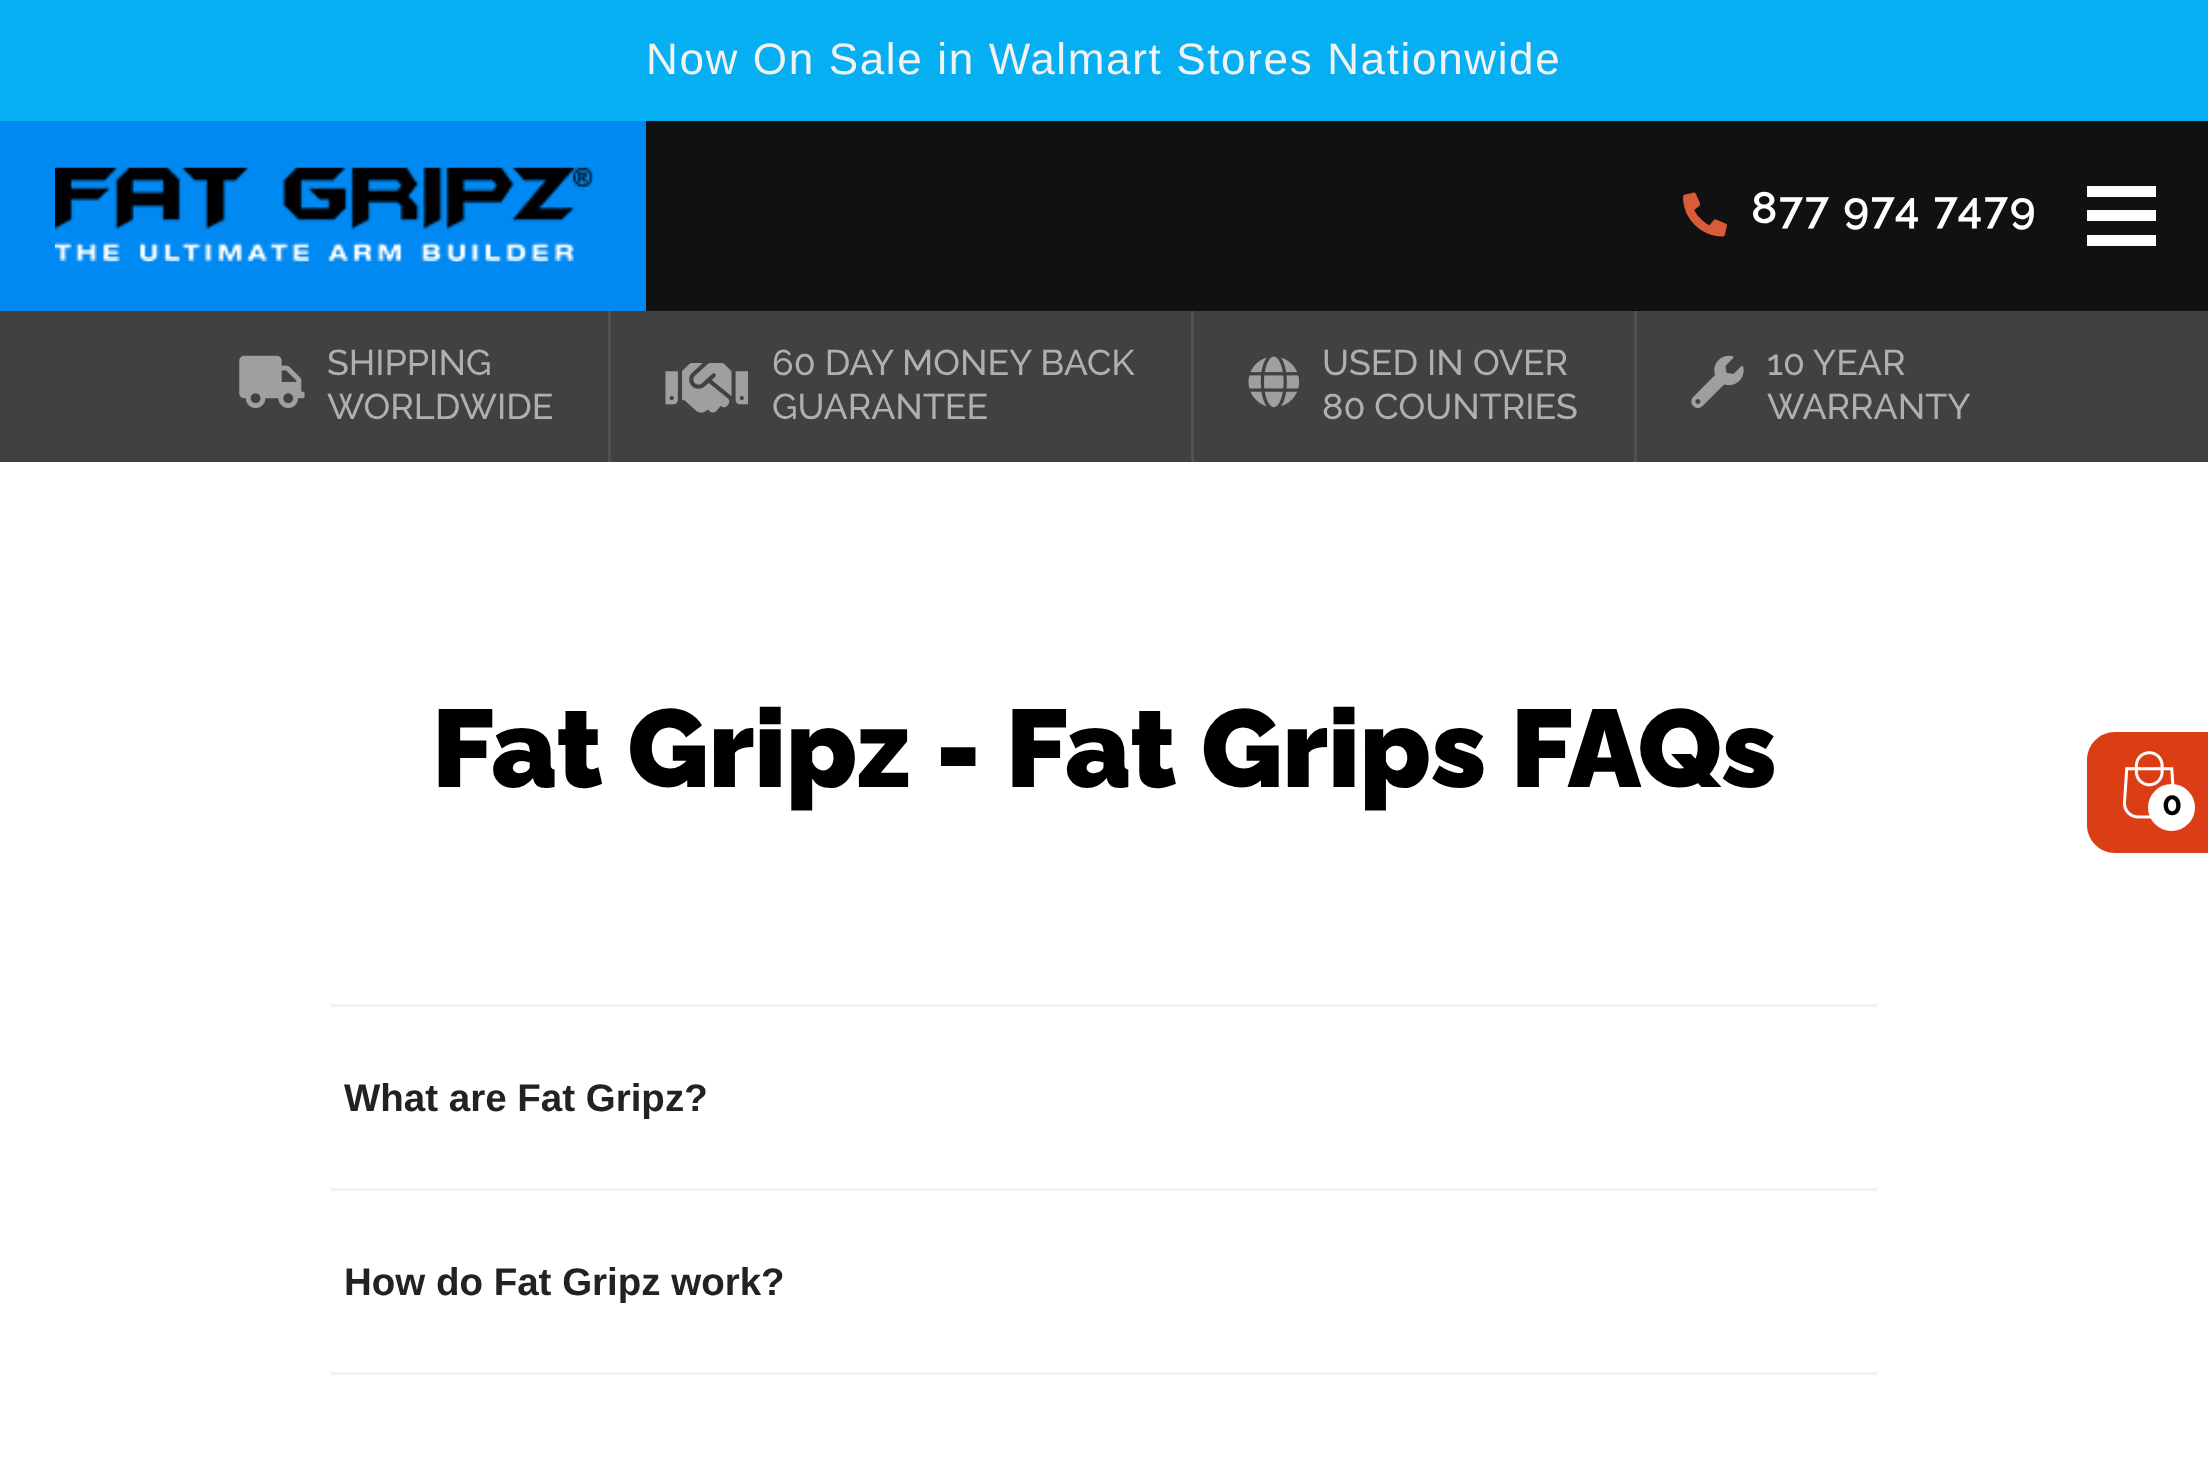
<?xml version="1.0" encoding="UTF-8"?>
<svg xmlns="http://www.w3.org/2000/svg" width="2208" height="1459">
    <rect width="100%" height="100%" fill="#FFFFFF"/>
    <rect x="0" y="0" width="2208" height="121" fill="#05AFF2"/>
    <text x="646" y="74" font-family="Liberation Sans" font-size="44" letter-spacing="1.65" fill="#F2F2F2">Now On Sale in Walmart Stores Nationwide</text>
    <rect x="646" y="121" width="1562" height="190" fill="#111111"/>
    <rect x="0" y="121" width="646" height="190" fill="#0089F2"/>
    <image x="55" y="167" width="539" height="95" href="img_01.png"/>
    <image x="1683" y="192" width="44" height="45" href="img_02.png"/>
    <text x="1751" y="223" font-family="Raleway" font-size="44" font-weight="600" letter-spacing="1.65" fill="#FFFFFF">877 974 7479</text>
    <rect x="2087" y="186" width="69" height="11" fill="#FFFFFF"/>
    <rect x="2087" y="210" width="69" height="11" fill="#FFFFFF"/>
    <rect x="2087" y="235" width="69" height="11" fill="#FFFFFF"/>
    <rect x="0" y="311" width="2208" height="151" fill="#414141"/>
    <image x="239" y="355" width="66" height="53" href="img_03.png"/>
    <text font-family="Raleway" font-size="35.75" font-weight="500" fill="#AFAFAF">
        <tspan x="327" y="375">SHIPPING</tspan>
        <tspan x="327" y="419">WORLDWIDE</tspan>
    </text>
    <rect x="608" y="311" width="3" height="151" fill="#525252"/>
    <image x="665" y="363" width="83" height="50" href="img_04.png"/>
    <text font-family="Raleway" font-size="35.75" font-weight="500" fill="#AFAFAF">
        <tspan x="772" y="375">60 DAY MONEY BACK</tspan>
        <tspan x="772" y="419">GUARANTEE</tspan>
    </text>
    <rect x="1191" y="311" width="3" height="151" fill="#525252"/>
    <image x="1248" y="356" width="52" height="52" href="img_05.png"/>
    <text font-family="Raleway" font-size="35.75" font-weight="500" fill="#AFAFAF">
        <tspan x="1322" y="375">USED IN OVER</tspan>
        <tspan x="1322" y="419">80 COUNTRIES</tspan>
    </text>
    <rect x="1634" y="311" width="3" height="151" fill="#525252"/>
    <image x="1691" y="355" width="53" height="53" href="img_06.png"/>
    <text font-family="Raleway" font-size="35.75" font-weight="500" fill="#AFAFAF">
        <tspan x="1767" y="375">10 YEAR</tspan>
        <tspan x="1767" y="419">WARRANTY</tspan>
    </text>
    <text x="432" y="787" font-family="Raleway" font-size="110" font-weight="900" fill="#000000">Fat Gripz - Fat Grips FAQs</text>
    <rect x="330" y="1004" width="1548" height="3" fill="#F2F2F2"/>
    <text x="344" y="1111" font-family="Liberation Sans" font-size="38.5" font-weight="700" fill="#222222">What are Fat Gripz?</text>
    <rect x="330" y="1188" width="1548" height="3" fill="#F2F2F2"/>
    <text x="344" y="1295" font-family="Liberation Sans" font-size="38.5" font-weight="700" fill="#222222">How do Fat Gripz work?</text>
    <rect x="330" y="1372" width="1548" height="3" fill="#F2F2F2"/>
    <path d="M 2115 732 H 2208 V 853 H 2115 C 2099.5 853 2087 840.5 2087 825 V 760 C 2087 744.5 2099.5 732 2115 732 Z" fill="#DB3E14"/>
    <image x="2122" y="751" width="53" height="68" href="img_07.png"/>
    <circle cx="2171.5" cy="807.5" r="23.5" fill="#FFFFFF"/>
    <text x="2162" y="815" font-family="Raleway" font-size="33" font-weight="700" letter-spacing="-3" fill="#000000">0</text>
</svg>
